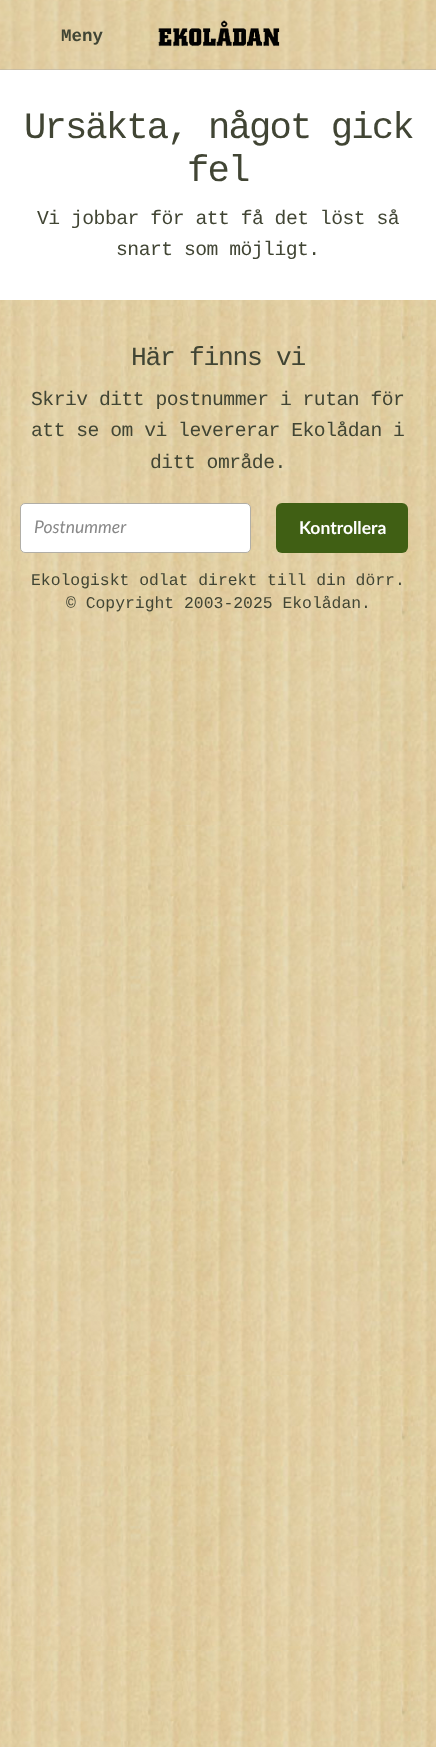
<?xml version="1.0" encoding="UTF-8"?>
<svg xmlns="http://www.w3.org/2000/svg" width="436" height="1747">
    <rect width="100%" height="100%" fill="#FFFFFF"/>
    <image x="0" y="300" width="436" height="1447" href="img_01.png"/>
    <image x="0" y="0" width="436" height="70" href="img_02.png"/>
    <rect x="0" y="69" width="436" height="1" fill="#B1AEA5" fill-opacity="0.5"/>
    <text x="61" y="41" font-family="Liberation Mono" font-size="17.5" font-weight="700" fill="#414534">Meny</text>
    <image x="158" y="20" width="122" height="27" href="img_03.png"/>
    <text x="24" y="138" font-family="Liberation Mono" font-size="37.25" letter-spacing="-1.9" fill="#414534">Ursäkta, något gick</text>
    <text x="187" y="181" font-family="Liberation Mono" font-size="37.25" letter-spacing="-1.9" fill="#414534">fel</text>
    <text x="37" y="224" font-family="Liberation Mono" font-size="19.7" letter-spacing="-0.5" fill="#414534">Vi jobbar för att få det löst så</text>
    <text x="116" y="255" font-family="Liberation Mono" font-size="19.7" letter-spacing="-0.5" fill="#414534">snart som möjligt.</text>
    <text x="131" y="365" font-family="Liberation Mono" font-size="26.25" letter-spacing="-1.25" fill="#414534">Här finns vi</text>
    <text font-family="Liberation Mono" font-size="19.7" letter-spacing="-0.5" fill="#414534">
        <tspan x="31" y="405">Skriv ditt postnummer i rutan för</tspan>
        <tspan x="31" y="436">att se om vi levererar Ekolådan i</tspan>
    </text>
    <text x="150" y="468" font-family="Liberation Mono" font-size="19.7" letter-spacing="-0.5" fill="#414534">ditt område.</text>
    <rect x="20.5" y="503.5" width="230" height="49" rx="4.5" fill="#FFFFFF" stroke="#B1AEA6"/>
    <text x="34" y="533" font-family="Lato" font-size="17.5" font-style="italic" fill="#888888">Postnummer</text>
    <rect x="276" y="503" width="132" height="50" rx="6" fill="#405F14"/>
    <text x="299" y="534" font-family="Lato" font-size="17.5" font-weight="700" fill="#FFFFFF">Kontrollera</text>
    <text x="31" y="585" font-family="Liberation Mono" font-size="16.4" fill="#414534">Ekologiskt odlat direkt till din dörr.</text>
    <text x="66" y="608" font-family="Liberation Mono" font-size="16.4" fill="#414534">© Copyright 2003-2025 Ekolådan.</text>
</svg>
